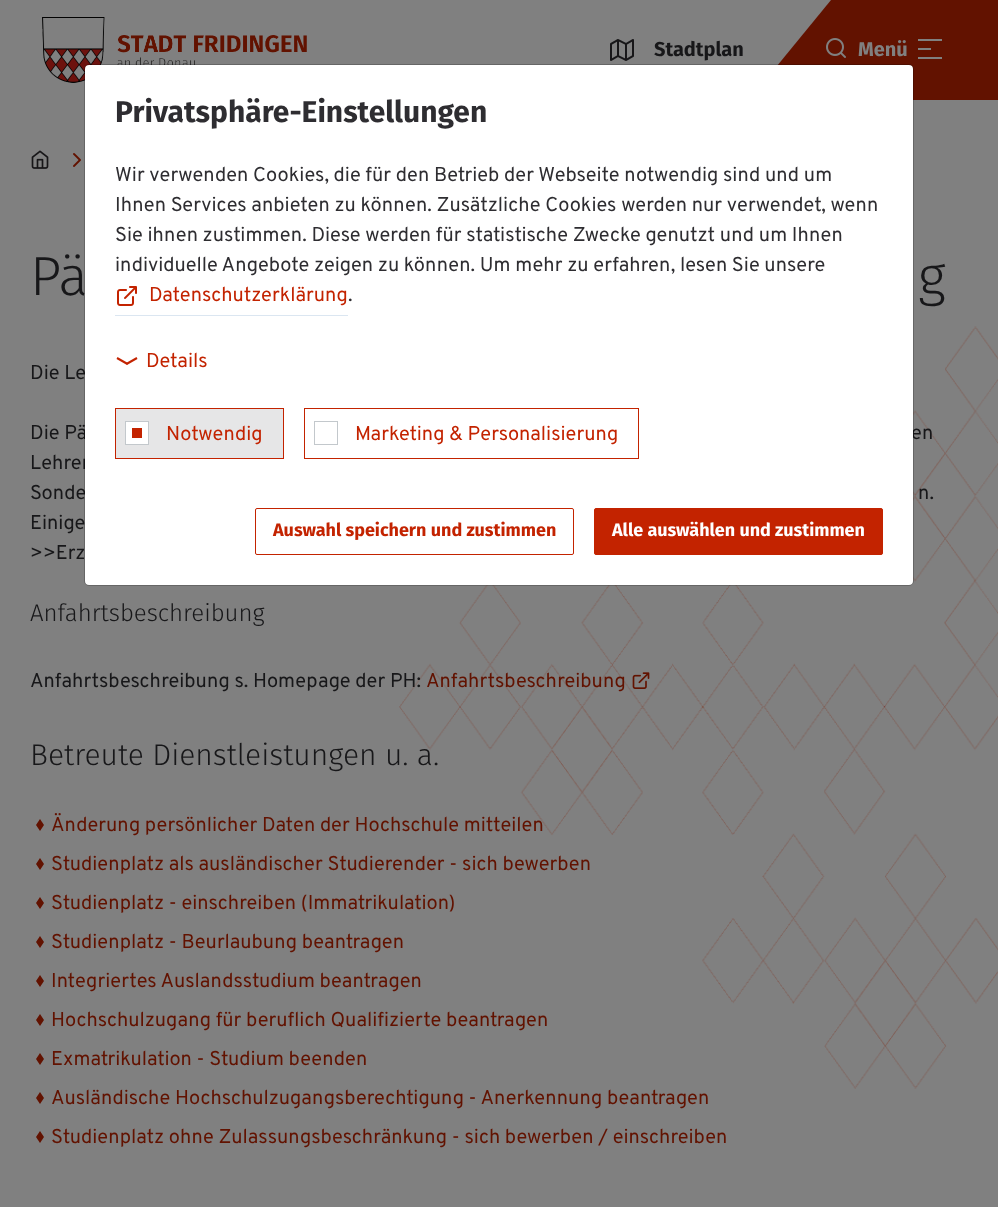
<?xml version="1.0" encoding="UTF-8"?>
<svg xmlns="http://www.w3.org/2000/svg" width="998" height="1207">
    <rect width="100%" height="100%" fill="#808080"/>
    <image x="42" y="17" width="265" height="66" href="img_01.png"/>
    <image x="610" y="39" width="24" height="22" href="img_02.png"/>
    <text x="654" y="56" font-family="Fira Sans" font-size="20" font-weight="700" fill="#171719">Stadtplan</text>
    <path d="M 831 0 L 749 100 H 998 V 0 Z" fill="#621200"/>
    <image x="826" y="38" width="20" height="20" href="img_03.png"/>
    <text x="858" y="56" font-family="Fira Sans" font-size="20" font-weight="700" fill="#808080">Menü</text>
    <rect x="918" y="39" width="24" height="2" fill="#808080"/>
    <rect x="918" y="48" width="13" height="2" fill="#808080"/>
    <rect x="918" y="57" width="24" height="2" fill="#808080"/>
    <image x="399" y="326" width="599" height="763" href="img_04.png"/>
    <image x="31" y="150" width="18" height="19" href="img_05.png"/>
    <image x="73" y="153" width="8" height="14" href="img_06.png"/>
    <text x="30" y="295" font-family="Fira Sans" font-size="55" font-weight="300" fill="#171719">Pä</text>
    <text x="918" y="295" font-family="Fira Sans" font-size="55" font-weight="300" fill="#171719">g</text>
    <text x="30" y="379" font-family="Overpass" font-size="20" fill="#171719">Die Le</text>
    <text x="30" y="439" font-family="Overpass" font-size="20" fill="#171719">Die Pä</text>
    <text x="911" y="439" font-family="Overpass" font-size="20" fill="#171719">en</text>
    <text font-family="Overpass" font-size="20" fill="#171719">
        <tspan x="30" y="469">Lehrer</tspan>
        <tspan x="30" y="499">Sonde</tspan>
    </text>
    <text x="918" y="499" font-family="Overpass" font-size="20" fill="#171719">n.</text>
    <text font-family="Overpass" font-size="20" fill="#171719">
        <tspan x="30" y="529">Einige</tspan>
        <tspan x="30" y="559">&gt;&gt;Erz</tspan>
    </text>
    <text x="30" y="621" font-family="Fira Sans" font-size="24" font-weight="300" fill="#171719">Anfahrtsbeschreibung</text>
    <text x="30" y="687" font-family="Overpass" font-size="20" fill="#171719">Anfahrtsbeschreibung s. Homepage der PH:</text>
    <text x="426" y="687" font-family="Overpass" font-size="20" fill="#621200">Anfahrtsbeschreibung</text>
    <image x="632" y="672" width="18" height="17" href="img_07.png"/>
    <text x="30" y="765" font-family="Fira Sans" font-size="30" font-weight="300" fill="#171719">Betreute Dienstleistungen u. a.</text>
    <path d="M 44 825 H 36 L 40 819 Z" fill="#621200"/>
    <text x="51" y="831" font-family="Overpass" font-size="20" fill="#621200">Änderung persönlicher Daten der Hochschule mitteilen</text>
    <path d="M 36 825 H 44 L 40 831 Z M 44 864 H 36 L 40 858 Z" fill="#621200"/>
    <path d="M 36 864 H 44 L 40 870 Z M 44 903 H 36 L 40 897 Z" fill="#621200"/>
    <text x="51" y="870" font-family="Overpass" font-size="20" fill="#621200">Studienplatz als ausländischer Studierender - sich bewerben</text>
    <path d="M 36 903 H 44 L 40 909 Z M 44 942 H 36 L 40 936 Z" fill="#621200"/>
    <text x="51" y="909" font-family="Overpass" font-size="20" fill="#621200">Studienplatz - einschreiben (Immatrikulation)</text>
    <path d="M 36 942 H 44 L 40 948 Z M 44 981 H 36 L 40 975 Z" fill="#621200"/>
    <text x="51" y="948" font-family="Overpass" font-size="20" fill="#621200">Studienplatz - Beurlaubung beantragen</text>
    <path d="M 36 981 H 44 L 40 987 Z M 44 1020 H 36 L 40 1014 Z" fill="#621200"/>
    <text x="51" y="987" font-family="Overpass" font-size="20" fill="#621200">Integriertes Auslandsstudium beantragen</text>
    <path d="M 36 1020 H 44 L 40 1026 Z M 44 1059 H 36 L 40 1053 Z" fill="#621200"/>
    <text x="51" y="1026" font-family="Overpass" font-size="20" fill="#621200">Hochschulzugang für beruflich Qualifizierte beantragen</text>
    <path d="M 36 1059 H 44 L 40 1065 Z M 44 1098 H 36 L 40 1092 Z" fill="#621200"/>
    <text x="51" y="1065" font-family="Overpass" font-size="20" fill="#621200">Exmatrikulation - Studium beenden</text>
    <path d="M 36 1098 H 44 L 40 1104 Z M 44 1137 H 36 L 40 1131 Z" fill="#621200"/>
    <text x="51" y="1104" font-family="Overpass" font-size="20" fill="#621200">Ausländische Hochschulzugangsberechtigung - Anerkennung beantragen</text>
    <path d="M 36 1137 H 44 L 40 1143 Z" fill="#621200"/>
    <text x="51" y="1143" font-family="Overpass" font-size="20" fill="#621200">Studienplatz ohne Zulassungsbeschränkung - sich bewerben / einschreiben</text>
    <rect x="85" y="65" width="828" height="520" rx="4" fill="#FFFFFF"/>
    <rect x="84.5" y="64.5" width="829" height="521" rx="4.5" fill="none" stroke="#000000" stroke-opacity="0.2"/>
    <text x="115" y="122" font-family="Fira Sans" font-size="30" font-weight="700" fill="#2E2D31">Privatsphäre-Einstellungen</text>
    <text font-family="Overpass" font-size="20" fill="#2E2D31">
        <tspan x="115" y="181">Wir verwenden Cookies, die für den Betrieb der Webseite notwendig sind und um</tspan>
        <tspan x="115" y="211">Ihnen Services anbieten zu können. Zusätzliche Cookies werden nur verwendet, wenn</tspan>
        <tspan x="115" y="241">Sie ihnen zustimmen. Diese werden für statistische Zwecke genutzt und um Ihnen</tspan>
        <tspan x="115" y="271">individuelle Angebote zeigen zu können. Um mehr zu erfahren, lesen Sie unsere</tspan>
    </text>
    <rect x="115" y="315" width="233" height="1" fill="#DBE6F1"/>
    <image x="117" y="286" width="20" height="20" href="img_08.png"/>
    <text x="149" y="301" font-family="Overpass" font-size="20" fill="#C32300">Datenschutzerklärung</text>
    <text x="348" y="301" font-family="Overpass" font-size="20" fill="#2E2D31">.</text>
    <path d="M 117.5 357 L 128 363 L 127 365 L 116.5 359 Z" fill="#C32300"/>
    <path d="M 126 363 L 136.5 357 L 137.5 359 L 127 365 Z" fill="#C32300"/>
    <text x="146" y="367" font-family="Overpass" font-size="20" fill="#C32300">Details</text>
    <rect x="115.5" y="408.5" width="168" height="50" fill="#E6E6E7" stroke="#C32300"/>
    <rect x="125.5" y="421.5" width="23" height="23" fill="#FFFFFF" stroke="#C3C8CC"/>
    <text x="166" y="440" font-family="Overpass" font-size="20" fill="#C32300">Notwendig</text>
    <rect x="132" y="428" width="10" height="10" fill="#C32300"/>
    <rect x="304.5" y="408.5" width="334" height="50" fill="none" stroke="#C32300"/>
    <rect x="314.5" y="421.5" width="23" height="23" fill="none" stroke="#C3C8CC"/>
    <text x="355" y="440" font-family="Overpass" font-size="20" fill="#C32300">Marketing &amp; Personalisierung</text>
    <rect x="255.5" y="508.5" width="318" height="46" rx="1.5" fill="none" stroke="#C32300"/>
    <text x="273" y="536" font-family="Fira Sans" font-size="18" font-weight="700" fill="#C32300">Auswahl speichern und zustimmen</text>
    <rect x="594.5" y="508.5" width="288" height="46" rx="1.5" fill="#C32300" stroke="#C32300"/>
    <text x="612" y="536" font-family="Fira Sans" font-size="18" font-weight="700" fill="#FFFFFF">Alle auswählen und zustimmen</text>
</svg>
